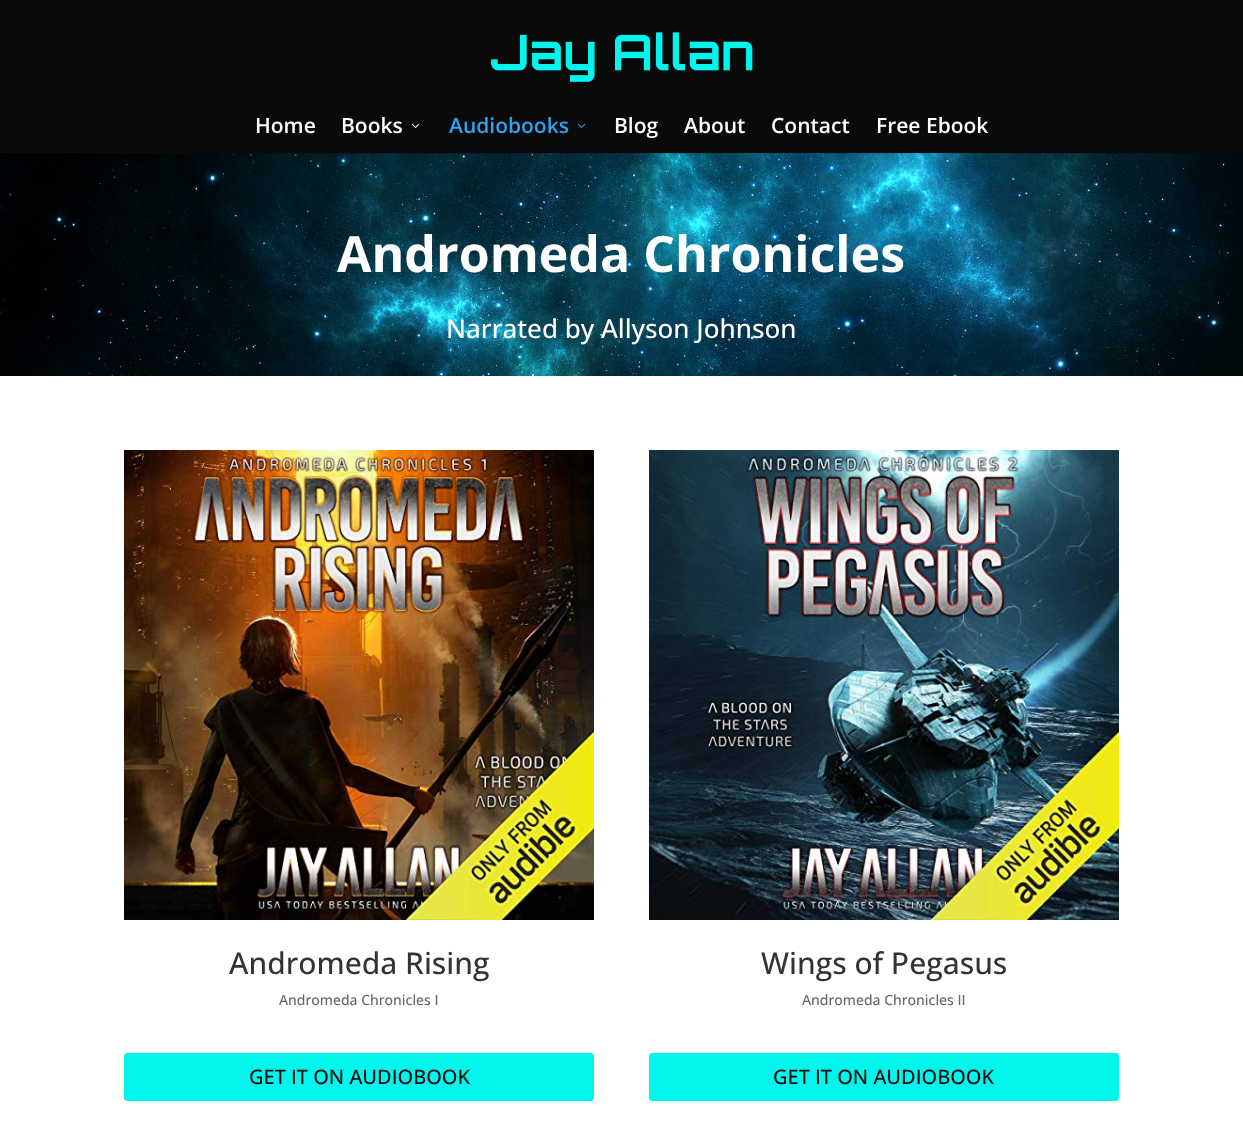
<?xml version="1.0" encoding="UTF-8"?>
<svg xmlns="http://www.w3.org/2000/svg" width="1243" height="1128">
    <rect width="100%" height="100%" fill="#FFFFFF"/>
    <image x="0" y="153" width="1243" height="223" href="img_04.png"/>
    <rect x="232" y="153" width="963" height="1" fill="#000000" fill-opacity="0.1"/>
    <rect x="0" y="0" width="1243" height="153" fill="#0A0A0A"/>
    <image x="491" y="32" width="262" height="50" href="img_01.png"/>
    <text x="255" y="133" font-family="Open Sans" font-size="21" font-weight="600" fill="#FFFFFF">Home</text>
    <text x="341" y="133" font-family="Open Sans" font-size="21" font-weight="600" fill="#FFFFFF">Books</text>
    <image x="411" y="123" width="9" height="5" href="img_02.png"/>
    <text x="449" y="133" font-family="Open Sans" font-size="21" font-weight="600" fill="#2EA3F2">Audiobooks</text>
    <image x="577" y="123" width="9" height="5" href="img_03.png"/>
    <text x="614" y="133" font-family="Open Sans" font-size="21" font-weight="600" fill="#FFFFFF">Blog</text>
    <text x="684" y="133" font-family="Open Sans" font-size="21" font-weight="600" fill="#FFFFFF">About</text>
    <text x="771" y="133" font-family="Open Sans" font-size="21" font-weight="600" fill="#FFFFFF">Contact</text>
    <text x="876" y="133" font-family="Open Sans" font-size="21" font-weight="600" fill="#FFFFFF">Free Ebook</text>
    <text x="337" y="272" font-family="Open Sans" font-size="50" font-weight="700" fill="#FFFFFF">Andromeda Chronicles</text>
    <text x="446" y="338" font-family="Open Sans" font-size="26" font-weight="500" fill="#FFFFFF">Narrated by Allyson Johnson</text>
    <image x="124" y="450" width="470" height="470" href="img_05.png"/>
    <text x="229" y="974" font-family="Open Sans" font-size="30" font-weight="500" fill="#333333">Andromeda Rising</text>
    <text x="279" y="1005" font-family="Open Sans" font-size="14" font-weight="500" fill="#666666">Andromeda Chronicles I</text>
    <rect x="124.5" y="1053.5" width="469" height="47" rx="2.5" fill="#00F5EC" stroke="#00F5EC"/>
    <text x="249" y="1084" font-family="Open Sans" font-size="20" font-weight="500" fill="#0A0A0A">GET IT ON AUDIOBOOK</text>
    <image x="649" y="450" width="470" height="470" href="img_06.png"/>
    <text x="761" y="974" font-family="Open Sans" font-size="30" font-weight="500" fill="#333333">Wings of Pegasus</text>
    <text x="802" y="1005" font-family="Open Sans" font-size="14" font-weight="500" fill="#666666">Andromeda Chronicles II</text>
    <rect x="649.5" y="1053.5" width="469" height="47" rx="2.5" fill="#00F5EC" stroke="#00F5EC"/>
    <text x="773" y="1084" font-family="Open Sans" font-size="20" font-weight="500" fill="#0A0A0A">GET IT ON AUDIOBOOK</text>
</svg>
